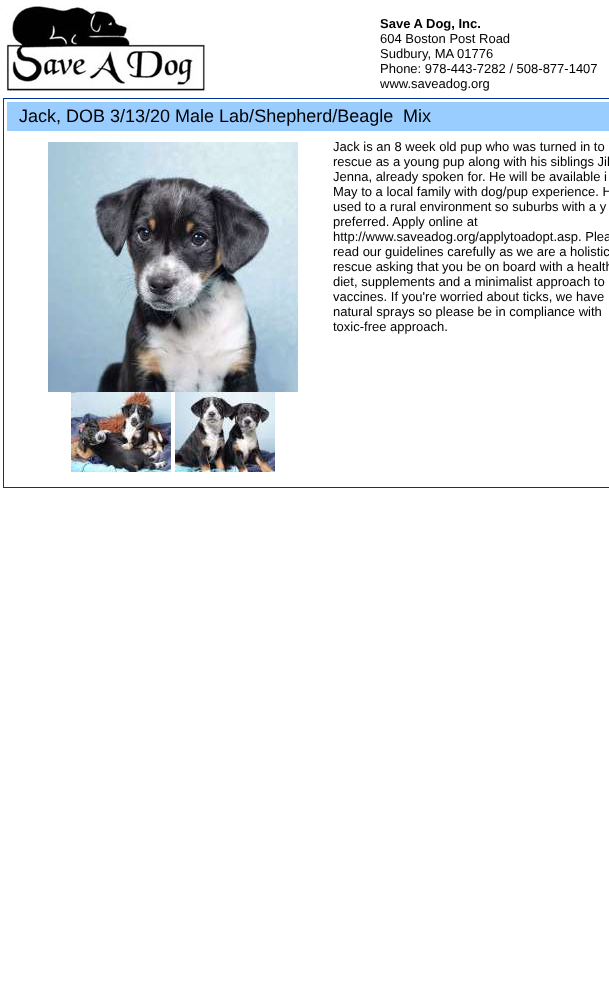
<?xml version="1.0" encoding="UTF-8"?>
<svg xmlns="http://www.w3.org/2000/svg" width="609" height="1006">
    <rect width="100%" height="100%" fill="#FFFFFF"/>
    <image x="6" y="6" width="200" height="85" href="img_01.png"/>
    <text x="380" y="28" font-family="Liberation Sans" font-size="13" font-weight="700" fill="#000000">Save A Dog, Inc.</text>
    <text font-family="Liberation Sans" font-size="13" fill="#000000">
        <tspan x="380" y="43">604 Boston Post Road</tspan>
        <tspan x="380" y="58">Sudbury, MA 01776</tspan>
        <tspan x="380" y="73">Phone: 978-443-7282 / 508-877-1407</tspan>
        <tspan x="380" y="88">www.saveadog.org</tspan>
    </text>
    <rect x="3" y="98" width="606" height="390" fill="#003399"/>
    <rect x="4" y="99" width="605" height="388" fill="#FFFFFF"/>
    <rect x="7" y="102" width="602" height="29" fill="#99CCFF"/>
    <text x="19" y="122" font-family="Liberation Sans" font-size="18" fill="#000000">Jack, DOB 3/13/20 Male Lab/Shepherd/Beagle</text>
    <text x="403" y="122" font-family="Liberation Sans" font-size="18" fill="#000000">Mix</text>
    <image x="48" y="142" width="250" height="250" href="img_02.png"/>
    <image x="71" y="392" width="100" height="80" href="img_03.png"/>
    <image x="175" y="392" width="100" height="80" href="img_04.png"/>
    <text font-family="Liberation Sans" font-size="13" fill="#000000">
        <tspan x="333" y="151">Jack is an 8 week old pup who was turned in to</tspan>
        <tspan x="333" y="166">rescue as a young pup along with his siblings Jil</tspan>
        <tspan x="333" y="181">Jenna, already spoken for. He will be available i</tspan>
        <tspan x="333" y="196">May to a local family with dog/pup experience. H</tspan>
        <tspan x="333" y="211">used to a rural environment so suburbs with a y</tspan>
        <tspan x="333" y="226">preferred. Apply online at</tspan>
        <tspan x="333" y="241">http://www.saveadog.org/applytoadopt.asp. Plea</tspan>
        <tspan x="333" y="256">read our guidelines carefully as we are a holistic</tspan>
        <tspan x="333" y="271">rescue asking that you be on board with a health</tspan>
        <tspan x="333" y="286">diet, supplements and a minimalist approach to</tspan>
        <tspan x="333" y="301">vaccines. If you're worried about ticks, we have</tspan>
        <tspan x="333" y="316">natural sprays so please be in compliance with</tspan>
        <tspan x="333" y="331">toxic-free approach.</tspan>
    </text>
</svg>
